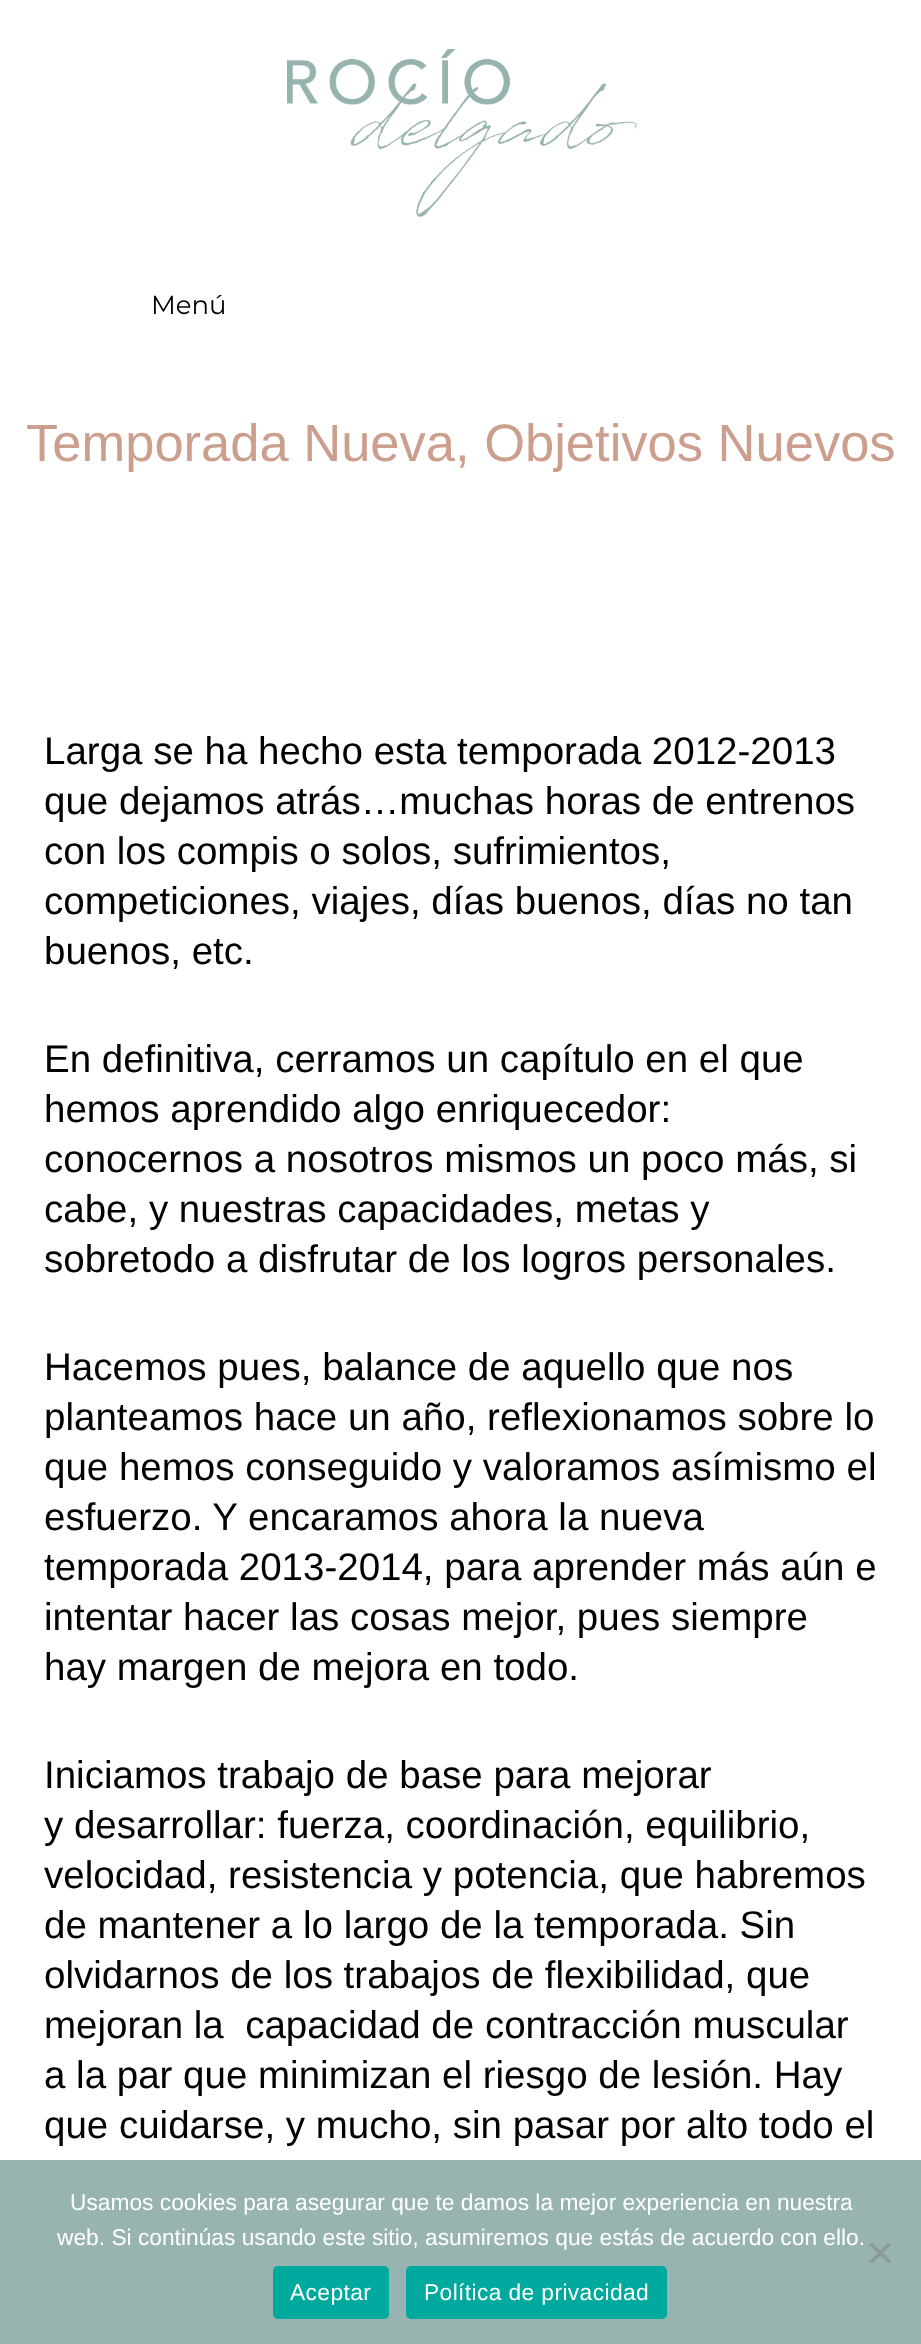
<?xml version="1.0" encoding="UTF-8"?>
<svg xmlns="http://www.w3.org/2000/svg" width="921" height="2344">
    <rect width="100%" height="100%" fill="#FFFFFF"/>
    <image x="287" y="49" width="350" height="168" href="img_01.png"/>
    <text x="151" y="314" font-family="Montserrat" font-size="26" fill="#000000">Menú</text>
    <text x="26" y="461" font-family="Liberation Sans" font-size="52.5" fill="#CC9E8D">Temporada Nueva, Objetivos Nuevos</text>
    <text font-family="Liberation Sans" font-size="38.5" fill="#000000">
        <tspan x="44" y="764">Larga se ha hecho esta temporada 2012-2013</tspan>
        <tspan x="44" y="814">que dejamos atrás…muchas horas de entrenos</tspan>
        <tspan x="44" y="864">con los compis o solos, sufrimientos,</tspan>
        <tspan x="44" y="914">competiciones, viajes, días buenos, días no tan</tspan>
        <tspan x="44" y="964">buenos, etc.</tspan>
    </text>
    <text font-family="Liberation Sans" font-size="38.5" fill="#000000">
        <tspan x="44" y="1072">En definitiva, cerramos un capítulo en el que</tspan>
        <tspan x="44" y="1122">hemos aprendido algo enriquecedor:</tspan>
        <tspan x="44" y="1172">conocernos a nosotros mismos un poco más, si</tspan>
        <tspan x="44" y="1222">cabe, y nuestras capacidades, metas y</tspan>
        <tspan x="44" y="1272">sobretodo a disfrutar de los logros personales.</tspan>
    </text>
    <text font-family="Liberation Sans" font-size="38.5" fill="#000000">
        <tspan x="44" y="1380">Hacemos pues, balance de aquello que nos</tspan>
        <tspan x="44" y="1430">planteamos hace un año, reflexionamos sobre lo</tspan>
        <tspan x="44" y="1480">que hemos conseguido y valoramos asímismo el</tspan>
        <tspan x="44" y="1530">esfuerzo. Y encaramos ahora la nueva</tspan>
        <tspan x="44" y="1580">temporada 2013-2014, para aprender más aún e</tspan>
        <tspan x="44" y="1630">intentar hacer las cosas mejor, pues siempre</tspan>
        <tspan x="44" y="1680">hay margen de mejora en todo.</tspan>
    </text>
    <text font-family="Liberation Sans" font-size="38.5" fill="#000000" xml:space="preserve"><tspan x="44" y="1788">Iniciamos trabajo de base para mejorar</tspan><tspan x="44" y="1838">y desarrollar: fuerza, coordinación, equilibrio,</tspan><tspan x="44" y="1888">velocidad, resistencia y potencia, que habremos</tspan><tspan x="44" y="1938">de mantener a lo largo de la temporada. Sin</tspan><tspan x="44" y="1988">olvidarnos de los trabajos de flexibilidad, que</tspan><tspan x="44" y="2038">mejoran la  capacidad de contracción muscular</tspan><tspan x="44" y="2088">a la par que minimizan el riesgo de lesión. Hay</tspan><tspan x="44" y="2138">que cuidarse, y mucho, sin pasar por alto todo el</tspan></text>
    <rect x="0" y="2160" width="921" height="184" fill="#98B4B0"/>
    <text x="70" y="2210" font-family="Liberation Sans" font-size="22.75" fill="#FFFFFF">Usamos cookies para asegurar que te damos la mejor experiencia en nuestra</text>
    <text x="57" y="2245" font-family="Liberation Sans" font-size="22.75" fill="#FFFFFF">web. Si continúas usando este sitio, asumiremos que estás de acuerdo con ello.</text>
    <path d="M 888.5 2242.5 L 891 2245 L 872 2263.5 L 869.5 2261 Z" fill="#8C9A98"/>
    <path d="M 869.5 2245 L 872 2242.5 L 891 2261 L 888.5 2263.5 Z" fill="#8C9A98"/>
    <rect x="273" y="2266" width="116" height="53" rx="5" fill="#00A99D"/>
    <text x="290" y="2300" font-family="Liberation Sans" font-size="22.75" letter-spacing="0.4" fill="#FFFFFF">Aceptar</text>
    <rect x="406" y="2266" width="261" height="53" rx="5" fill="#00A99D"/>
    <text x="424" y="2300" font-family="Liberation Sans" font-size="22.75" letter-spacing="0.4" fill="#FFFFFF">Política de privacidad</text>
</svg>
